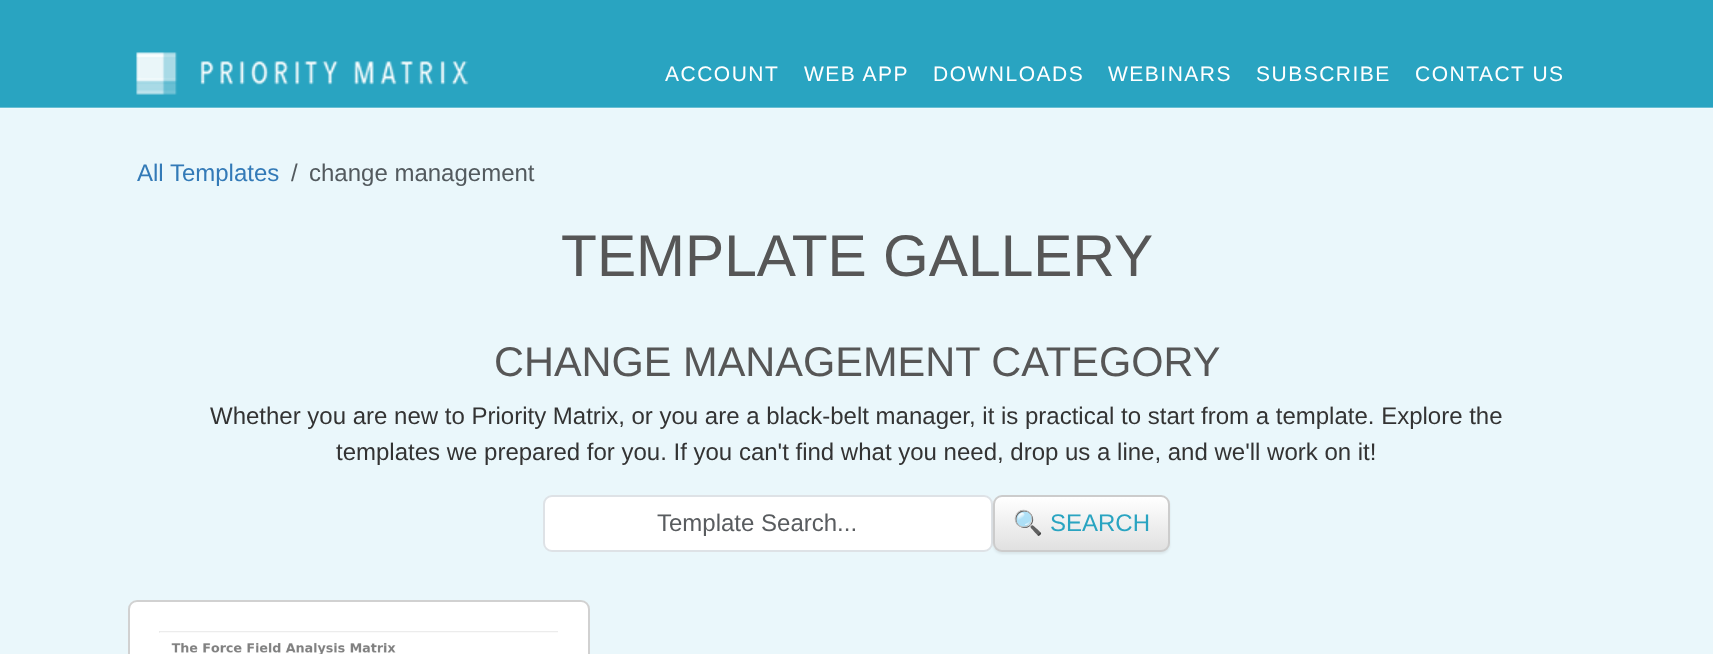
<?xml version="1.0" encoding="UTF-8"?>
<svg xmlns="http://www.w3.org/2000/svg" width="1713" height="654">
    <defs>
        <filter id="blur1" x="-50%" y="-200%" width="200%" height="500%"><feGaussianBlur stdDeviation="1"/></filter>
        <clipPath id="clip1"><rect x="993" y="495" width="177" height="57" rx="9"/></clipPath>
        <linearGradient id="g1" gradientUnits="userSpaceOnUse" x1="1082" y1="497" x2="1082" y2="551"><stop offset="0" stop-color="#FFFFFF"/><stop offset="1" stop-color="#E0E0E0"/></linearGradient>
    </defs>
    <rect width="100%" height="100%" fill="#EAF7FB"/>
    <rect x="0" y="108" width="1713" height="1" fill="#F0F9FC"/>
    <rect x="0" y="0" width="1713" height="107" fill="#29A4C1"/>
    <rect x="0" y="107" width="1713" height="1" fill="#69BFD4"/>
    <image x="136" y="52" width="333" height="43" href="img_01.png"/>
    <text x="665" y="81" font-family="Liberation Sans" font-size="21" letter-spacing="1.5" fill="#FFFFFF">ACCOUNT</text>
    <text x="804" y="81" font-family="Liberation Sans" font-size="21" letter-spacing="1.5" fill="#FFFFFF">WEB APP</text>
    <text x="933" y="81" font-family="Liberation Sans" font-size="21" letter-spacing="1.5" fill="#FFFFFF">DOWNLOADS</text>
    <text x="1108" y="81" font-family="Liberation Sans" font-size="21" letter-spacing="1.5" fill="#FFFFFF">WEBINARS</text>
    <text x="1256" y="81" font-family="Liberation Sans" font-size="21" letter-spacing="1.5" fill="#FFFFFF">SUBSCRIBE</text>
    <text x="1415" y="81" font-family="Liberation Sans" font-size="21" letter-spacing="1.5" fill="#FFFFFF">CONTACT US</text>
    <text x="137" y="181" font-family="Liberation Sans" font-size="24" fill="#337AB7">All Templates</text>
    <text x="291" y="181" font-family="Liberation Sans" font-size="24" fill="#535A5E">/</text>
    <text x="309" y="181" font-family="Liberation Sans" font-size="24" fill="#535A5E">change management</text>
    <text x="561" y="276" font-family="Liberation Sans" font-size="58.75" fill="#565656">TEMPLATE GALLERY</text>
    <text x="494" y="376" font-family="Liberation Sans" font-size="41.5" fill="#565656">CHANGE MANAGEMENT CATEGORY</text>
    <text x="210" y="424" font-family="Liberation Sans" font-size="24" fill="#333333">Whether you are new to Priority Matrix, or you are a black-belt manager, it is practical to start from a template. Explore the</text>
    <text x="336" y="460" font-family="Liberation Sans" font-size="24" fill="#333333">templates we prepared for you. If you can't find what you need, drop us a line, and we'll work on it!</text>
    <rect x="544" y="496" width="448" height="55" rx="8" fill="#FFFFFF" stroke="#DEE2E6" stroke-width="2"/>
    <text x="657" y="531" font-family="Liberation Sans" font-size="24" fill="#595C5F">Template Search...</text>
    <rect x="993" y="497" width="177" height="57" rx="9" fill="#000000" fill-opacity="0.07" filter="url(#blur1)"/>
    <g clip-path="url(#clip1)">
        <rect x="993" y="497" width="177" height="54" fill="url(#g1)"/>
    </g>
    <path d="M 1002 498 H 1161 C 1165 498 1168 501 1168 506 V 544 L 1167 548 C 1168 547 1169 545 1169 543 V 505 C 1169 501 1165 497 1161 497 H 1003 C 1001 497 998 498 997 500 C 998 499 1000 498 1002 498 Z" fill="#FFFFFF" fill-opacity="0.15"/>
    <rect x="994" y="496" width="175" height="55" rx="8" fill="none" stroke="#CCCCCC" stroke-width="2"/>
    <text x="1013" y="531" font-family="Noto Color Emoji" font-size="24" fill="#29A4C1">🔍</text>
    <text x="1050" y="531" font-family="Liberation Sans" font-size="24" fill="#29A4C1">SEARCH</text>
    <rect x="128" y="600" width="462" height="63" rx="9" fill="#FFFFFF"/>
    <rect x="129" y="601" width="460" height="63" rx="8" fill="none" stroke="#000000" stroke-opacity="0.18" stroke-width="2"/>
    <image x="159" y="631" width="399" height="23" href="img_02.png"/>
</svg>
